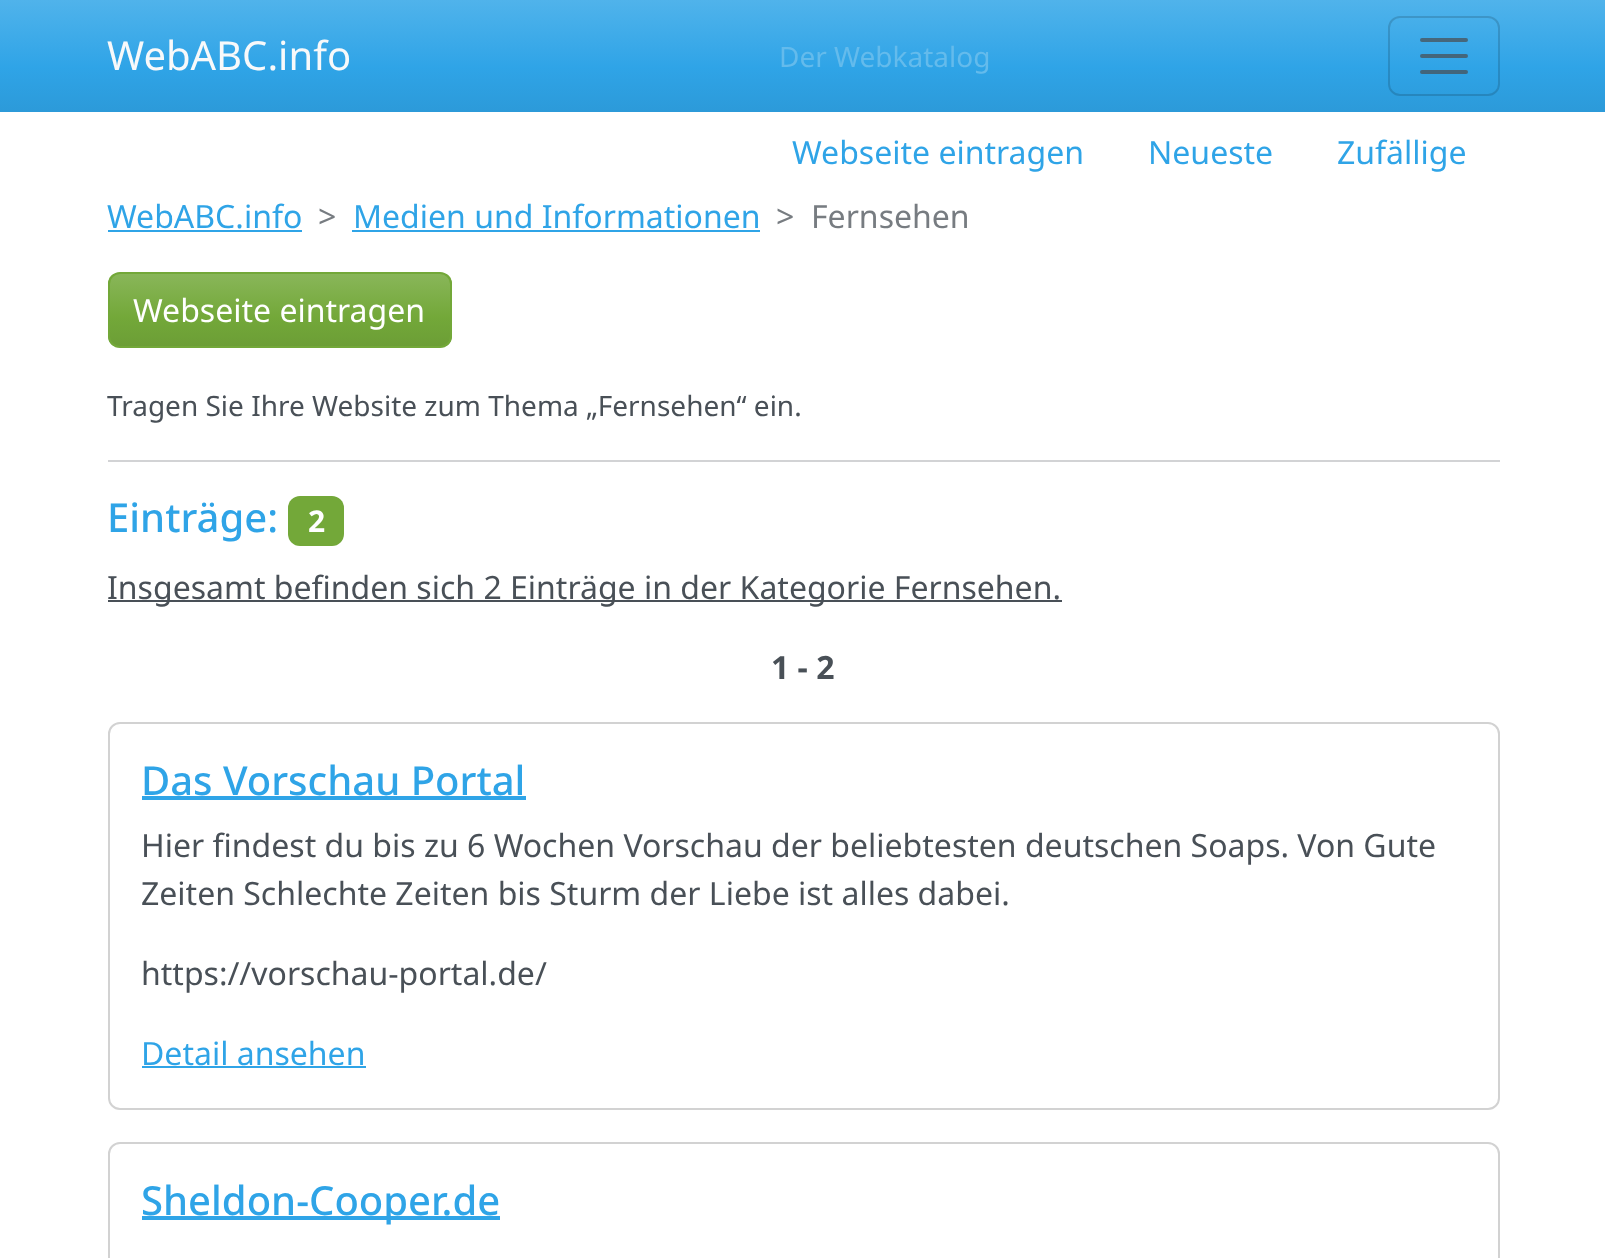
<?xml version="1.0" encoding="UTF-8"?>
<svg xmlns="http://www.w3.org/2000/svg" width="1605" height="1258">
    <defs>
        <linearGradient id="g1" gradientUnits="userSpaceOnUse" x1="803" y1="0" x2="803" y2="112"><stop offset="0" stop-color="#50B3EB"/><stop offset="0.6" stop-color="#2FA4E7"/><stop offset="1" stop-color="#2C9AD9"/></linearGradient>
        <clipPath id="clip1"><rect x="108" y="272" width="344" height="76" rx="12"/></clipPath>
        <linearGradient id="g2" gradientUnits="userSpaceOnUse" x1="280" y1="274" x2="280" y2="346"><stop offset="0" stop-color="#89B659"/><stop offset="0.6" stop-color="#73A839"/><stop offset="1" stop-color="#6C9E36"/></linearGradient>
    </defs>
    <rect width="100%" height="100%" fill="#FFFFFF"/>
    <rect x="0" y="0" width="1605" height="112" fill="url(#g1)"/>
    <text x="107" y="70" font-family="Noto Sans" font-size="40" fill="#F8F9FA">WebABC.info</text>
    <text x="779" y="67" font-family="Noto Sans" font-size="28" fill="#64BBEC">Der Webkatalog</text>
    <rect x="1389" y="17" width="110" height="78" rx="11" fill="none" stroke="#000000" stroke-opacity="0.15" stroke-width="2"/>
    <path d="M 1422 40 H 1466 M 1422 56 H 1466 M 1422 72 H 1466" fill="none" stroke="#495057" stroke-opacity="0.75" stroke-width="4" stroke-linecap="round"/>
    <text x="792" y="164" font-family="Noto Sans" font-size="32" fill="#2FA4E7">Webseite eintragen</text>
    <text x="1148" y="164" font-family="Noto Sans" font-size="32" fill="#2FA4E7">Neueste</text>
    <text x="1337" y="164" font-family="Noto Sans" font-size="32" fill="#2FA4E7">Zufällige</text>
    <text x="107" y="228" font-family="Noto Sans" font-size="32" fill="#2FA4E7">WebABC.info</text>
    <rect x="108" y="230" width="194" height="2" fill="#2FA4E7"/>
    <text x="318" y="228" font-family="Noto Sans" font-size="32" fill="#777C81">&gt;</text>
    <text x="353" y="228" font-family="Noto Sans" font-size="32" fill="#2FA4E7">Medien und Informationen</text>
    <rect x="352" y="230" width="408" height="2" fill="#2FA4E7"/>
    <text x="776" y="228" font-family="Noto Sans" font-size="32" fill="#777C81">&gt;</text>
    <text x="811" y="228" font-family="Noto Sans" font-size="32" fill="#777C81">Fernsehen</text>
    <g clip-path="url(#clip1)">
        <rect x="108" y="274" width="344" height="72" fill="url(#g2)"/>
    </g>
    <rect x="109" y="273" width="342" height="74" rx="11" fill="none" stroke="#73A839" stroke-width="2"/>
    <text x="133" y="322" font-family="Noto Sans" font-size="32" fill="#FFFFFF">Webseite eintragen</text>
    <text x="107" y="416" font-family="Noto Sans" font-size="28" fill="#495057">Tragen Sie Ihre Website zum Thema „Fernsehen“ ein.</text>
    <rect x="108" y="460" width="1392" height="2" fill="#D2D3D5"/>
    <text x="107" y="532" font-family="Noto Sans" font-size="40" font-weight="500" fill="#2FA4E7">Einträge:</text>
    <rect x="288" y="496" width="56" height="50" rx="12" fill="#73A839"/>
    <text x="308" y="532" font-family="Noto Sans" font-size="30" font-weight="700" fill="#FFFFFF">2</text>
    <rect x="108" y="600" width="954" height="2" fill="#495057"/>
    <text x="107" y="599" font-family="Noto Sans" font-size="32" fill="#495057">Insgesamt befinden sich 2 Einträge in der Kategorie Fernsehen.</text>
    <text x="771" y="679" font-family="Noto Sans" font-size="32" font-weight="700" fill="#495057">1 - 2</text>
    <rect x="109" y="723" width="1390" height="386" rx="11" fill="none" stroke="#D2D2D2" stroke-width="2"/>
    <text x="141" y="795" font-family="Noto Sans" font-size="40" font-weight="500" fill="#2FA4E7">Das Vorschau Portal</text>
    <rect x="142" y="796" width="384" height="4" fill="#2FA4E7"/>
    <text font-family="Noto Sans" font-size="32" fill="#495057">
        <tspan x="141" y="857">Hier findest du bis zu 6 Wochen Vorschau der beliebtesten deutschen Soaps. Von Gute</tspan>
        <tspan x="141" y="905">Zeiten Schlechte Zeiten bis Sturm der Liebe ist alles dabei.</tspan>
    </text>
    <text x="141" y="985" font-family="Noto Sans" font-size="32" fill="#495057">https://vorschau-portal.de/</text>
    <text x="141" y="1065" font-family="Noto Sans" font-size="32" fill="#2FA4E7">Detail ansehen</text>
    <rect x="142" y="1066" width="224" height="2" fill="#2FA4E7"/>
    <rect x="109" y="1143" width="1390" height="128" rx="11" fill="none" stroke="#D2D2D2" stroke-width="2"/>
    <rect x="142" y="1216" width="358" height="4" fill="#2FA4E7"/>
    <text x="141" y="1215" font-family="Noto Sans" font-size="40" font-weight="500" fill="#2FA4E7">Sheldon-Cooper.de</text>
</svg>
